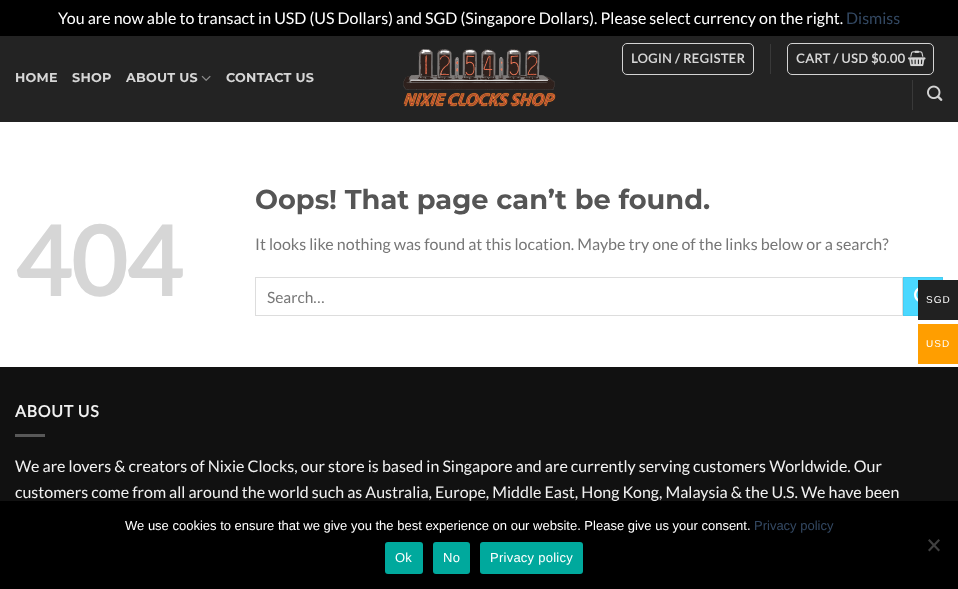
<?xml version="1.0" encoding="UTF-8"?>
<svg xmlns="http://www.w3.org/2000/svg" width="958" height="589">
    <rect width="100%" height="100%" fill="#000000"/>
    <text x="58" y="24" font-family="Lato" font-size="16" fill="#FFFFFF">You are now able to transact in USD (US Dollars) and SGD (Singapore Dollars). Please select currency on the right.</text>
    <text x="846" y="24" font-family="Lato" font-size="16" fill="#334862">Dismiss</text>
    <rect x="0" y="122" width="958" height="245" fill="#FFFFFF"/>
    <rect x="0" y="36" width="958" height="86" fill="#232323"/>
    <image x="403" y="49" width="153" height="58" href="img_01.png"/>
    <rect x="622.5" y="43.5" width="131" height="31" rx="4.5" fill="none" stroke="#D3D3D3"/>
    <text x="631" y="63" font-family="Lato" font-size="12.75" font-weight="700" letter-spacing="0.4" fill="#D6D6D6">LOGIN / REGISTER</text>
    <rect x="770" y="44" width="1" height="30" fill="#393939"/>
    <rect x="787.5" y="43.5" width="146" height="31" rx="4.5" fill="none" stroke="#D3D3D3"/>
    <text x="796" y="63" font-family="Lato" font-size="12.75" font-weight="700" letter-spacing="0.4" fill="#D6D6D6">CART / USD $0.00</text>
    <image x="908" y="50" width="18" height="17" href="img_02.png"/>
    <rect x="912" y="80" width="1" height="30" fill="#393939"/>
    <image x="927" y="85" width="16" height="16" href="img_03.png"/>
    <text x="15" y="82" font-family="Montserrat" font-size="12.75" font-weight="700" letter-spacing="0.25" fill="#D6D6D6">HOME</text>
    <text x="72" y="82" font-family="Montserrat" font-size="12.75" font-weight="700" letter-spacing="0.25" fill="#D6D6D6">SHOP</text>
    <text x="126" y="82" font-family="Montserrat" font-size="12.75" font-weight="700" letter-spacing="0.25" fill="#D6D6D6">ABOUT US</text>
    <image x="201" y="75" width="10" height="6" href="img_04.png"/>
    <text x="226" y="82" font-family="Montserrat" font-size="12.75" font-weight="700" letter-spacing="0.25" fill="#D6D6D6">CONTACT US</text>
    <text x="15" y="296" font-family="Lato" font-size="96" font-weight="700" fill="#D6D6D6">404</text>
    <text x="255" y="209" font-family="Montserrat" font-size="27.25" font-weight="700" fill="#555555">Oops! That page can’t be found.</text>
    <text x="255" y="250" font-family="Lato" font-size="16" fill="#777777">It looks like nothing was found at this location. Maybe try one of the links below or a search?</text>
    <rect x="255.5" y="277.5" width="647" height="38" fill="none" stroke="#DDDDDD"/>
    <text x="267" y="303" font-family="Lato" font-size="15.5" fill="#777777">Search…</text>
    <rect x="903.5" y="277.5" width="39" height="38" fill="#4AD8FF" stroke="#46CDF2"/>
    <image x="914" y="287" width="4" height="15" href="img_05.png"/>
    <rect x="0" y="367" width="958" height="134" fill="#111111"/>
    <text x="15" y="417" font-family="Lato" font-size="16" font-weight="700" letter-spacing="0.75" fill="#F1F1F1">ABOUT US</text>
    <rect x="15" y="434" width="30" height="3" fill="#585858"/>
    <text font-family="Lato" font-size="16" fill="#F1F1F1">
        <tspan x="15" y="472">We are lovers &amp; creators of Nixie Clocks, our store is based in Singapore and are currently serving customers Worldwide. Our</tspan>
        <tspan x="15" y="498">customers come from all around the world such as Australia, Europe, Middle East, Hong Kong, Malaysia &amp; the U.S. We have been</tspan>
    </text>
    <rect x="918" y="280" width="40" height="40" fill="#212121"/>
    <text x="926" y="303" font-family="Liberation Sans" font-size="10" letter-spacing="1" fill="#FFFFFF">SGD</text>
    <rect x="918" y="324" width="40" height="40" fill="#FF9E00"/>
    <text x="926" y="347" font-family="Liberation Sans" font-size="10" letter-spacing="1" fill="#FFFFFF">USD</text>
    <text x="125" y="530" font-family="Liberation Sans" font-size="13" fill="#FFFFFF">We use cookies to ensure that we give you the best experience on our website. Please give us your consent.</text>
    <text x="754" y="530" font-family="Liberation Sans" font-size="13" fill="#334862">Privacy policy</text>
    <path d="M 938.5 539 L 940 540.5 L 929.5 551.5 L 928 550 Z" fill="#404040"/>
    <path d="M 928 540.5 L 929.5 539 L 940 550 L 938.5 551.5 Z" fill="#404040"/>
    <rect x="385" y="542" width="38" height="32" rx="3" fill="#00A99D"/>
    <text x="395" y="562" font-family="Liberation Sans" font-size="13" letter-spacing="0.25" fill="#FFFFFF">Ok</text>
    <rect x="433" y="542" width="37" height="32" rx="3" fill="#00A99D"/>
    <text x="443" y="562" font-family="Liberation Sans" font-size="13" letter-spacing="0.25" fill="#FFFFFF">No</text>
    <rect x="480" y="542" width="103" height="32" rx="3" fill="#00A99D"/>
    <text x="490" y="562" font-family="Liberation Sans" font-size="13" letter-spacing="0.25" fill="#FFFFFF">Privacy policy</text>
</svg>
